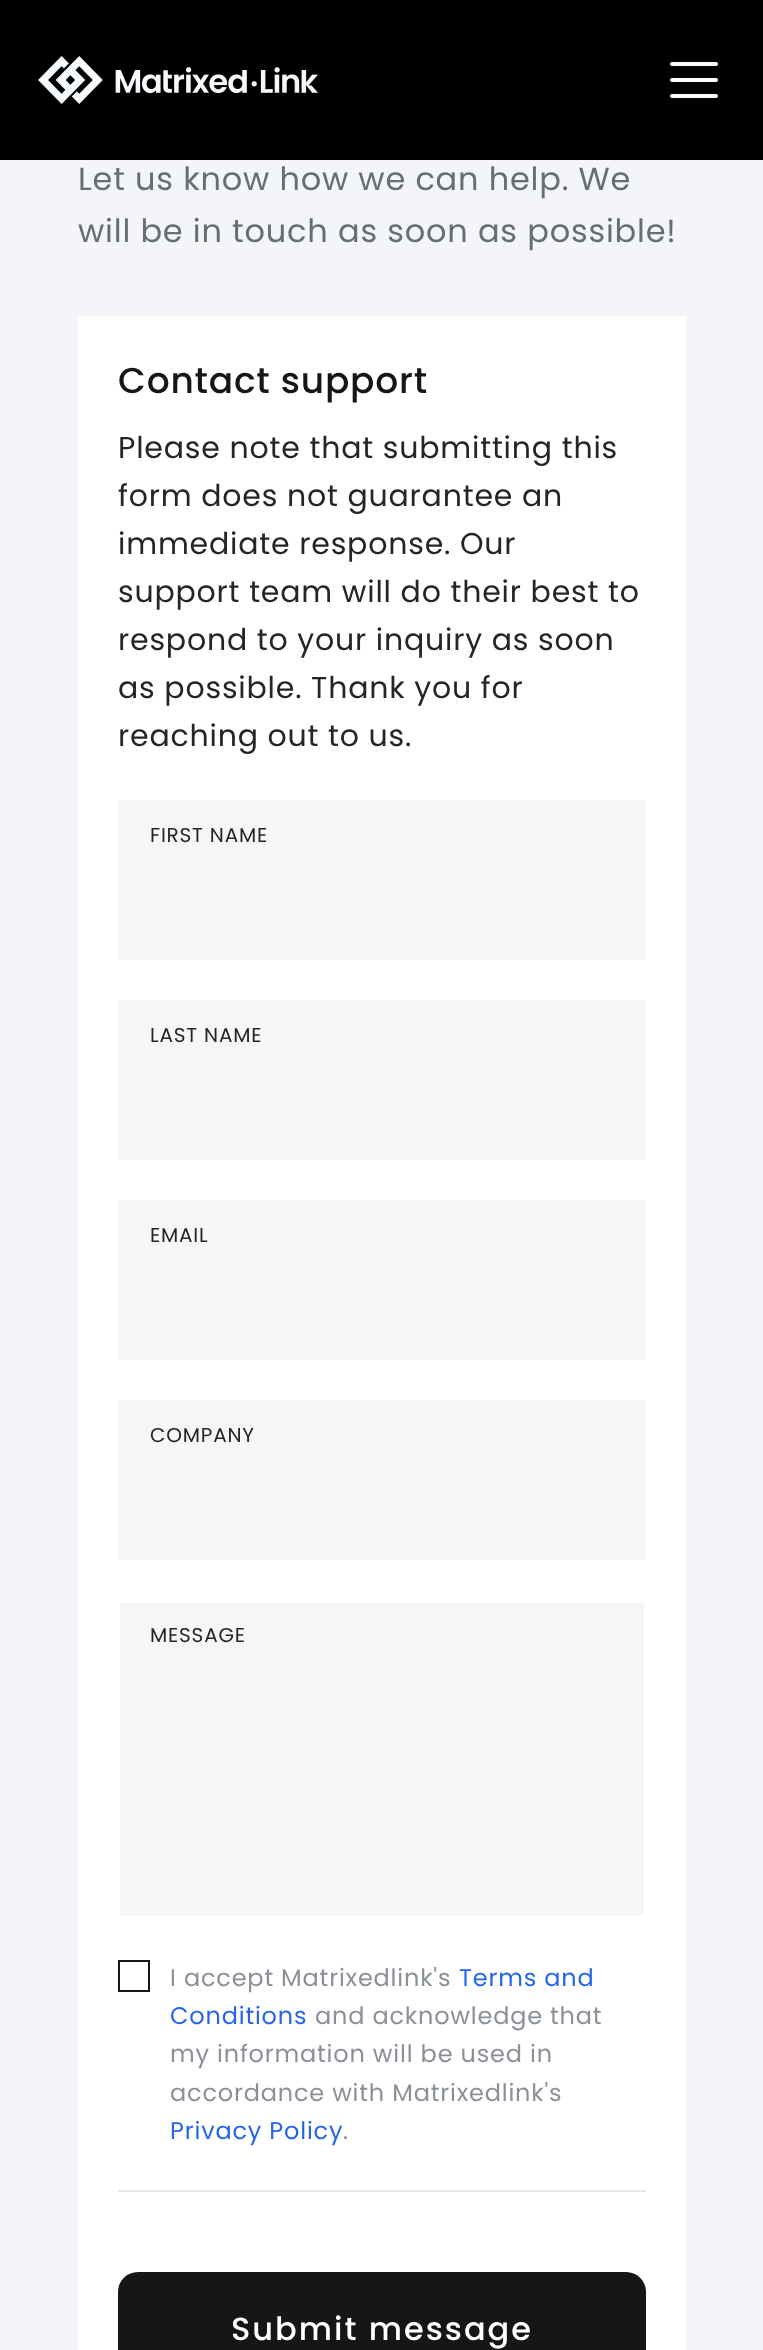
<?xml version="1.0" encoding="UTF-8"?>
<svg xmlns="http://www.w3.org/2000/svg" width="763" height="2350">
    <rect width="100%" height="100%" fill="#F3F5F9"/>
    <rect x="0" y="0" width="763" height="160" fill="#000000"/>
    <image x="38" y="56" width="280" height="48" href="img_01.png"/>
    <rect x="670" y="62" width="48" height="4" rx="2" fill="#FCFAFF"/>
    <rect x="670" y="78" width="48" height="4" rx="2" fill="#FFFFFF"/>
    <rect x="670" y="94" width="48" height="4" rx="2" fill="#FDFCFF"/>
    <text font-family="Poppins" font-size="32" letter-spacing="0.8" fill="#676E73">
        <tspan x="78" y="190">Let us know how we can help. We</tspan>
        <tspan x="78" y="242">will be in touch as soon as possible!</tspan>
    </text>
    <rect x="78" y="316" width="608" height="2034" fill="#FFFFFF"/>
    <text x="118" y="393" font-family="Poppins" font-size="36" font-weight="500" letter-spacing="0.8" fill="#161616">Contact support</text>
    <text font-family="Poppins" font-size="30" letter-spacing="0.8" fill="#252525">
        <tspan x="118" y="458">Please note that submitting this</tspan>
        <tspan x="118" y="506">form does not guarantee an</tspan>
        <tspan x="118" y="554">immediate response. Our</tspan>
        <tspan x="118" y="602">support team will do their best to</tspan>
        <tspan x="118" y="650">respond to your inquiry as soon</tspan>
        <tspan x="118" y="698">as possible. Thank you for</tspan>
        <tspan x="118" y="746">reaching out to us.</tspan>
    </text>
    <rect x="118" y="800" width="528" height="160" fill="#F6F6F6"/>
    <text x="150" y="842" font-family="Poppins" font-size="20" letter-spacing="0.8" fill="#252525">FIRST NAME</text>
    <rect x="118" y="1000" width="528" height="160" fill="#F6F6F6"/>
    <text x="150" y="1042" font-family="Poppins" font-size="20" letter-spacing="0.8" fill="#252525">LAST NAME</text>
    <rect x="118" y="1200" width="528" height="160" fill="#F6F6F6"/>
    <text x="150" y="1242" font-family="Poppins" font-size="20" letter-spacing="0.8" fill="#252525">EMAIL</text>
    <rect x="118" y="1400" width="528" height="160" fill="#F6F6F6"/>
    <text x="150" y="1442" font-family="Poppins" font-size="20" letter-spacing="0.8" fill="#252525">COMPANY</text>
    <rect x="120" y="1602" width="524" height="314" fill="#F6F6F6"/>
    <text x="150" y="1642" font-family="Poppins" font-size="20" letter-spacing="0.8" fill="#252525">MESSAGE</text>
    <rect x="119" y="1961" width="30" height="30" fill="none" stroke="#161616" stroke-width="2"/>
    <text x="170" y="1986" font-family="Poppins" font-size="24" letter-spacing="0.8" fill="#8A8F98">I accept Matrixedlink's</text>
    <text x="459" y="1986" font-family="Poppins" font-size="24" letter-spacing="0.8" fill="#2465EC">Terms and</text>
    <text x="170" y="2024" font-family="Poppins" font-size="24" letter-spacing="0.8" fill="#2465EC">Conditions</text>
    <text x="315" y="2024" font-family="Poppins" font-size="24" letter-spacing="0.8" fill="#8A8F98">and acknowledge that</text>
    <text font-family="Poppins" font-size="24" letter-spacing="0.8" fill="#8A8F98">
        <tspan x="170" y="2062">my information will be used in</tspan>
        <tspan x="170" y="2101">accordance with Matrixedlink's</tspan>
    </text>
    <text x="170" y="2139" font-family="Poppins" font-size="24" letter-spacing="0.8" fill="#2465EC">Privacy Policy</text>
    <text x="343" y="2139" font-family="Poppins" font-size="24" letter-spacing="0.8" fill="#8A8F98">.</text>
    <rect x="118" y="2190" width="528" height="2" fill="#E7E7E7"/>
    <rect x="118" y="2272" width="528" height="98" rx="20" fill="#161616"/>
    <text x="231" y="2340" font-family="Poppins" font-size="32" font-weight="500" letter-spacing="2" fill="#FFFFFF">Submit message</text>
</svg>
